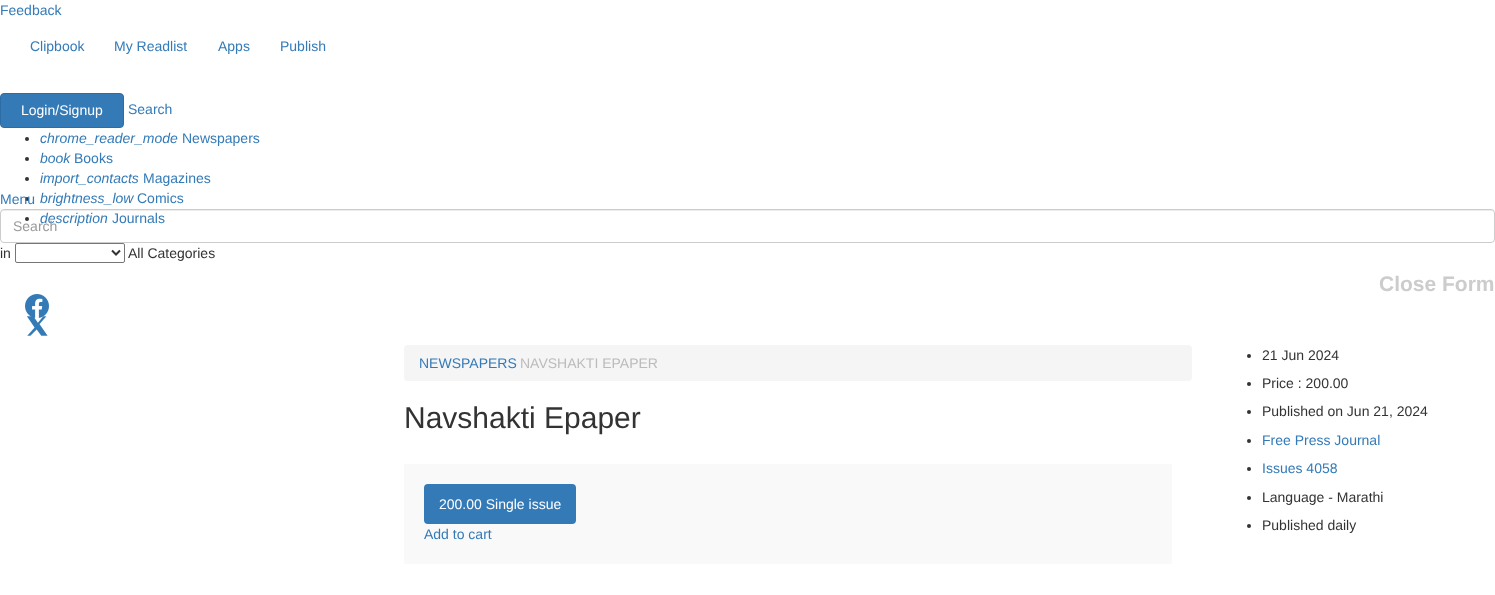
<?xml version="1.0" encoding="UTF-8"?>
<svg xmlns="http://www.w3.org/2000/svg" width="1495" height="595">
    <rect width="100%" height="100%" fill="#FFFFFF"/>
    <text x="0" y="15" font-family="Liberation Sans" font-size="14" fill="#337AB7">Feedback</text>
    <text x="30" y="51" font-family="Liberation Sans" font-size="14" fill="#337AB7">Clipbook</text>
    <text x="114" y="51" font-family="Liberation Sans" font-size="14" fill="#337AB7">My Readlist</text>
    <text x="218" y="51" font-family="Liberation Sans" font-size="14" fill="#337AB7">Apps</text>
    <text x="280" y="51" font-family="Liberation Sans" font-size="14" fill="#337AB7">Publish</text>
    <circle cx="27" cy="199" r="2" fill="#333333"/>
    <text x="0" y="204" font-family="Liberation Sans" font-size="14" fill="#337AB7">Menu</text>
    <rect x="0.5" y="93.5" width="123" height="34" rx="3.5" fill="#337AB7" stroke="#2E6DA4"/>
    <text x="21" y="115" font-family="Liberation Sans" font-size="14" fill="#FFFFFF">Login/Signup</text>
    <text x="128" y="114" font-family="Liberation Sans" font-size="14" fill="#337AB7">Search</text>
    <circle cx="27" cy="139" r="2" fill="#333333"/>
    <text x="40" y="143" font-family="Liberation Sans" font-size="14" font-style="italic" fill="#337AB7">chrome_reader_mode</text>
    <text x="182" y="143" font-family="Liberation Sans" font-size="14" fill="#337AB7">Newspapers</text>
    <circle cx="27" cy="159" r="2" fill="#333333"/>
    <text x="40" y="163" font-family="Liberation Sans" font-size="14" font-style="italic" fill="#337AB7">book</text>
    <text x="74" y="163" font-family="Liberation Sans" font-size="14" fill="#337AB7">Books</text>
    <circle cx="27" cy="179" r="2" fill="#333333"/>
    <text x="40" y="183" font-family="Liberation Sans" font-size="14" font-style="italic" fill="#337AB7">import_contacts</text>
    <text x="143" y="183" font-family="Liberation Sans" font-size="14" fill="#337AB7">Magazines</text>
    <text x="40" y="203" font-family="Liberation Sans" font-size="14" font-style="italic" fill="#337AB7">brightness_low</text>
    <text x="137" y="203" font-family="Liberation Sans" font-size="14" fill="#337AB7">Comics</text>
    <path d="M 4 211 H 1491 C 1493 211 1494 212 1494 214 C 1494 212 1493 210 1491 210 H 4 C 3 210 1 211 1 212 V 214 C 1 212 2 211 4 211 Z" fill="#ECECEC"/>
    <rect x="0.5" y="209.5" width="1494" height="33" rx="3.5" fill="none" stroke="#CCCCCC"/>
    <circle cx="27" cy="219" r="2" fill="#333333"/>
    <text x="40" y="223" font-family="Liberation Sans" font-size="14" font-style="italic" fill="#337AB7">description</text>
    <text x="112" y="223" font-family="Liberation Sans" font-size="14" fill="#337AB7">Journals</text>
    <text x="13" y="231" font-family="Liberation Sans" font-size="14" fill="#999999">Search</text>
    <text x="0" y="258" font-family="Liberation Sans" font-size="14" fill="#333333">in</text>
    <rect x="15.5" y="243.5" width="109" height="19" rx="1.5" fill="none" stroke="#767676"/>
    <path d="M 112 250.5 L 116 254.5 L 120 250.5" fill="none" stroke="#333333" stroke-width="2"/>
    <text x="128" y="258" font-family="Liberation Sans" font-size="14" fill="#333333">All Categories</text>
    <text x="1379" y="291" font-family="Liberation Sans" font-size="21" font-weight="700" fill="#CCCCCC">Close Form</text>
    <image x="25" y="294" width="24" height="24" href="img_01.png"/>
    <image x="27" y="316" width="21" height="20" href="img_02.png"/>
    <rect x="404" y="345" width="788" height="36" rx="4" fill="#F5F5F5"/>
    <text x="419" y="368" font-family="Liberation Sans" font-size="14" fill="#337AB7">NEWSPAPERS</text>
    <text x="520" y="368" font-family="Liberation Sans" font-size="14" fill="#BBBBBB">NAVSHAKTI EPAPER</text>
    <text x="404" y="428" font-family="Liberation Sans" font-size="30" fill="#333333">Navshakti Epaper</text>
    <rect x="404" y="464" width="768" height="100" fill="#F9F9F9"/>
    <rect x="424" y="484" width="152" height="40" rx="4" fill="#337AB7"/>
    <text x="439" y="509" font-family="Liberation Sans" font-size="14" fill="#FFFFFF">200.00 Single issue</text>
    <text x="424" y="539" font-family="Liberation Sans" font-size="14" fill="#337AB7">Add to cart</text>
    <circle cx="1249" cy="356" r="2" fill="#333333"/>
    <text x="1262" y="360" font-family="Liberation Sans" font-size="14" fill="#333333">21 Jun 2024</text>
    <circle cx="1249" cy="384" r="2" fill="#333333"/>
    <text x="1262" y="388" font-family="Liberation Sans" font-size="14" fill="#333333">Price : 200.00</text>
    <circle cx="1249" cy="412" r="2" fill="#333333"/>
    <text x="1262" y="416" font-family="Liberation Sans" font-size="14" fill="#333333">Published on Jun 21, 2024</text>
    <circle cx="1249" cy="441" r="2" fill="#333333"/>
    <text x="1262" y="445" font-family="Liberation Sans" font-size="14" fill="#337AB7">Free Press Journal</text>
    <circle cx="1249" cy="469" r="2" fill="#333333"/>
    <text x="1262" y="473" font-family="Liberation Sans" font-size="14" fill="#337AB7">Issues 4058</text>
    <circle cx="1249" cy="498" r="2" fill="#333333"/>
    <text x="1262" y="502" font-family="Liberation Sans" font-size="14" fill="#333333">Language - Marathi</text>
    <circle cx="1249" cy="526" r="2" fill="#333333"/>
    <text x="1262" y="530" font-family="Liberation Sans" font-size="14" fill="#333333">Published daily</text>
</svg>
